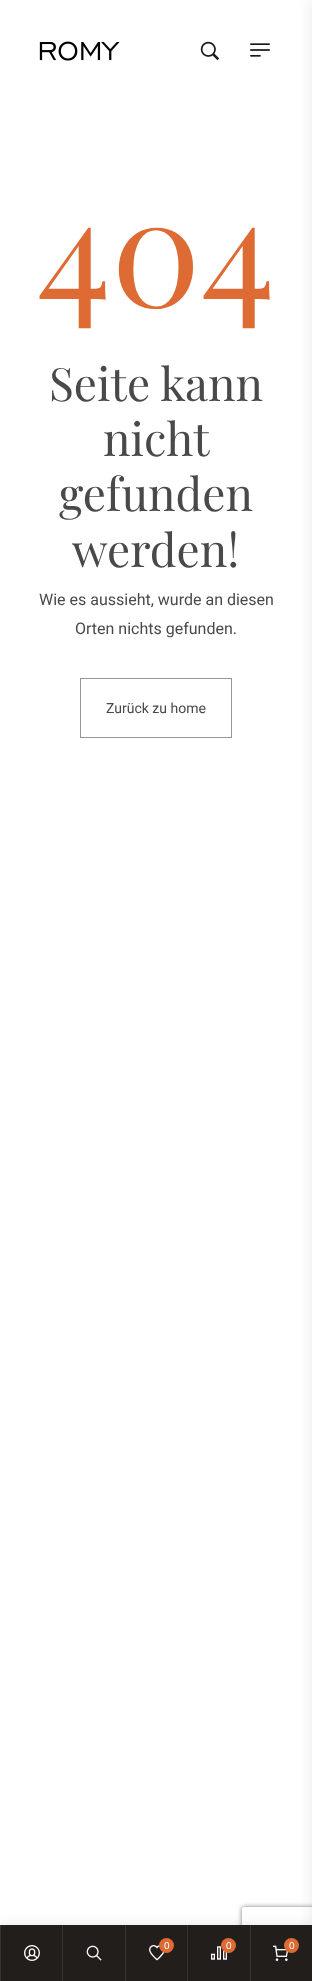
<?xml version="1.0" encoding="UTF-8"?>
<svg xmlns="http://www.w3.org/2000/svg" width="312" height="1981">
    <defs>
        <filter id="blur1" x="-50%" y="-200%" width="200%" height="500%"><feGaussianBlur stdDeviation="7.5"/></filter>
        <clipPath id="clip1"><path d="M 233 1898 H 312 V 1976 H 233 Z M 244 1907 H 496 C 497 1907 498 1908 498 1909 V 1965 C 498 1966 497 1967 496 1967 H 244 C 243 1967 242 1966 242 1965 V 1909 C 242 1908 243 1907 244 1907 Z" clip-rule="evenodd"/></clipPath>
        <filter id="blur2" x="-50%" y="-200%" width="200%" height="500%"><feGaussianBlur stdDeviation="2.5"/></filter>
        <filter id="blur3" x="-50%" y="-200%" width="200%" height="500%"><feGaussianBlur stdDeviation="6"/></filter>
    </defs>
    <rect width="100%" height="100%" fill="#FFFFFF"/>
    <image x="39" y="41" width="81" height="20" href="img_01.png"/>
    <image x="200" y="41" width="20" height="20" href="img_02.png"/>
    <image x="250" y="43" width="20" height="14" href="img_03.png"/>
    <text x="37" y="307" font-family="Playfair Display" font-size="150" fill="#DD6B33">404</text>
    <text x="49" y="401" font-family="Playfair Display" font-size="46" fill="#494949">Seite kann</text>
    <text x="103" y="456" font-family="Playfair Display" font-size="46" fill="#494949">nicht</text>
    <text x="59" y="511" font-family="Playfair Display" font-size="46" fill="#494949">gefunden</text>
    <text x="72" y="567" font-family="Playfair Display" font-size="46" fill="#494949">werden!</text>
    <text x="39" y="605" font-family="Roboto" font-size="16" fill="#494949">Wie es aussieht, wurde an diesen</text>
    <text x="75" y="634" font-family="Roboto" font-size="16" fill="#494949">Orten nichts gefunden.</text>
    <rect x="80.5" y="678.5" width="151" height="59" fill="none" stroke="#979797"/>
    <text x="106" y="713" font-family="Roboto" font-size="14" fill="#494949">Zurück zu home</text>
    <rect x="312" y="0" width="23" height="1981" fill="#000000" fill-opacity="0.09" filter="url(#blur1)"/>
    <g clip-path="url(#clip1)">
        <rect x="242" y="1907" width="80" height="60" rx="2" fill="#808080" filter="url(#blur2)"/>
    </g>
    <rect x="-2" y="1925" width="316" height="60" fill="#000000" fill-opacity="0.1" filter="url(#blur3)"/>
    <rect x="1" y="1925" width="311" height="56" fill="#211E1C"/>
    <rect x="0" y="1925" width="1" height="56" fill="#373533"/>
    <image x="24" y="1945" width="16" height="16" href="img_04.png"/>
    <rect x="62" y="1925" width="1" height="56" fill="#373533"/>
    <image x="86" y="1945" width="16" height="16" href="img_05.png"/>
    <rect x="125" y="1925" width="1" height="56" fill="#373533"/>
    <image x="149" y="1945" width="16" height="16" href="img_06.png"/>
    <circle cx="166.5" cy="1945.5" r="7.5" fill="#DD6B33"/>
    <text x="164" y="1949" font-family="Liberation Sans" font-size="10" fill="#FFFFFF">0</text>
    <rect x="187" y="1925" width="1" height="56" fill="#373533"/>
    <image x="211" y="1946" width="16" height="14" href="img_07.png"/>
    <circle cx="228.5" cy="1945.5" r="7.5" fill="#DD6B33"/>
    <text x="226" y="1949" font-family="Liberation Sans" font-size="10" fill="#FFFFFF">0</text>
    <rect x="250" y="1925" width="1" height="56" fill="#373533"/>
    <image x="273" y="1945" width="15" height="16" href="img_08.png"/>
    <circle cx="291.5" cy="1945.5" r="7.5" fill="#DD6B33"/>
    <text x="289" y="1949" font-family="Liberation Sans" font-size="10" fill="#FFFFFF">0</text>
</svg>
